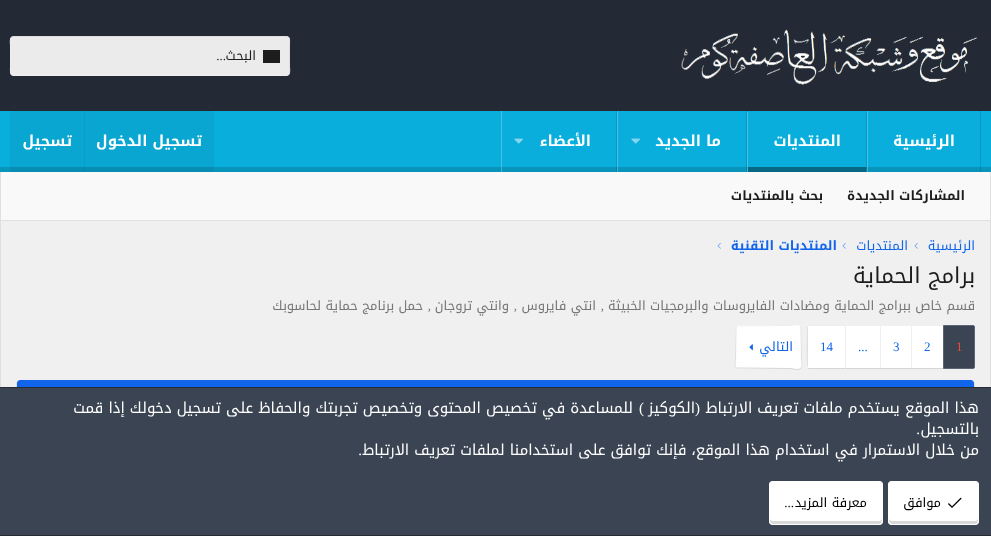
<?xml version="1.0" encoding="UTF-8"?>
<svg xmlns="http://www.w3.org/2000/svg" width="991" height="536">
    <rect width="100%" height="100%" fill="#232A35"/>
    <image x="681" y="22" width="296" height="63" href="img_01.png"/>
    <rect x="10" y="36" width="280" height="40" rx="4" fill="#EBEBEB"/>
    <path d="M 11.5 37.5 L 14 36.5 H 286 C 290.5 36.5 289.5 42.5 289.5 45.5 V 66.5 C 289.5 68.5 290.5 72.5 288.5 74.5" fill="none" stroke="#DFDFDF"/>
    <path d="M 288.5 74.5 L 286 75.5 H 14 C 9.5 75.5 10.5 69.5 10.5 66.5 V 45.5 C 10.5 43.5 9.5 39.5 11.5 37.5" fill="none" stroke="#EEEEEE"/>
    <rect x="263" y="50" width="17" height="13" fill="#1D1D1D"/>
    <text x="256" y="60" font-family="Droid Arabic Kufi" font-size="13" direction="rtl" fill="#1D1D1D">البحث</text>
    <text x="226" y="60" font-family="Liberation Serif" font-size="13" direction="rtl" fill="#1D1D1D">...</text>
    <rect x="0" y="111" width="991" height="56" fill="#09AEDC"/>
    <rect x="0" y="167" width="991" height="5" fill="#0894BB"/>
    <rect x="980" y="111" width="1" height="61" fill="#000000" fill-opacity="0.12"/>
    <rect x="867" y="111" width="1" height="61" fill="#FFFFFF" fill-opacity="0.25"/>
    <text x="955" y="146" font-family="Droid Arabic Kufi" font-size="15" font-weight="700" direction="rtl" fill="#FFFFFF">الرئيسية</text>
    <path d="M 867 113 C 867 112 866 111 865 111 C 866 111 866 112 866 113 V 172 H 867 Z" fill="#000000" fill-opacity="0.12"/>
    <path d="M 747 172 H 748 V 113 C 748 112 748 111 749 111 C 748 111 747 112 747 113 Z" fill="#FFFFFF" fill-opacity="0.25"/>
    <rect x="748" y="167" width="118" height="5" fill="#066883"/>
    <text x="841" y="146" font-family="Droid Arabic Kufi" font-size="15" font-weight="700" direction="rtl" fill="#FFFFFF">المنتديات</text>
    <rect x="746" y="111" width="1" height="61" fill="#000000" fill-opacity="0.12"/>
    <rect x="617" y="111" width="1" height="61" fill="#FFFFFF" fill-opacity="0.25"/>
    <text x="721" y="146" font-family="Droid Arabic Kufi" font-size="15" font-weight="700" direction="rtl" fill="#FFFFFF">ما الجديد</text>
    <image x="631" y="138" width="9" height="6" href="img_02.png"/>
    <rect x="616" y="111" width="1" height="61" fill="#000000" fill-opacity="0.12"/>
    <rect x="501" y="111" width="1" height="61" fill="#FFFFFF" fill-opacity="0.25"/>
    <text x="591" y="146" font-family="Droid Arabic Kufi" font-size="15" font-weight="700" direction="rtl" fill="#FFFFFF">الأعضاء</text>
    <image x="514" y="138" width="9" height="6" href="img_02.png"/>
    <rect x="10" y="111" width="204" height="61" fill="#1D1D1D" fill-opacity="0.05"/>
    <text x="202" y="146" font-family="Droid Arabic Kufi" font-size="15" font-weight="700" direction="rtl" fill="#FFFFFF">تسجيل الدخول</text>
    <rect x="84" y="111" width="1" height="61" fill="#1D1D1D" fill-opacity="0.05"/>
    <text x="72" y="146" font-family="Droid Arabic Kufi" font-size="15" font-weight="700" direction="rtl" fill="#FFFFFF">تسجيل</text>
    <rect x="1" y="172" width="989" height="48" fill="#F9F9F9"/>
    <rect x="990" y="172" width="1" height="215" fill="#DFDFDF"/>
    <rect x="0" y="220" width="991" height="1" fill="#E0E0E0"/>
    <rect x="0" y="172" width="1" height="215" fill="#DFDFDF"/>
    <text x="965" y="200" font-family="Droid Arabic Kufi" font-size="13" font-weight="700" direction="rtl" fill="#1D1D1D">المشاركات الجديدة</text>
    <text x="823" y="200" font-family="Droid Arabic Kufi" font-size="13" font-weight="700" direction="rtl" fill="#1D1D1D">بحث بالمنتديات</text>
    <rect x="1" y="221" width="989" height="166" fill="#F0F0F0"/>
    <text x="975" y="250" font-family="Droid Arabic Kufi" font-size="13" direction="rtl" fill="#1165EB">الرئيسية</text>
    <image x="914" y="243" width="4" height="6" href="img_03.png"/>
    <text x="908" y="250" font-family="Droid Arabic Kufi" font-size="13" direction="rtl" fill="#1165EB">المنتديات</text>
    <image x="842" y="243" width="4" height="6" href="img_03.png"/>
    <text x="837" y="250" font-family="Droid Arabic Kufi" font-size="13" font-weight="700" direction="rtl" fill="#1165EB">المنتديات التقنية</text>
    <image x="717" y="243" width="4" height="6" href="img_03.png"/>
    <text x="975" y="283" font-family="Droid Arabic Kufi" font-size="22" direction="rtl" fill="#1D1D1D">برامج الحماية</text>
    <text x="975" y="310" font-family="Droid Arabic Kufi" font-size="13" direction="rtl" fill="#767676">قسم خاص ببرامج الحماية ومضادات الفايروسات والبرمجيات الخبيثة</text>
    <text x="604" y="310" font-family="Liberation Serif" font-size="13" direction="rtl" fill="#767676">,</text>
    <text x="596" y="310" font-family="Droid Arabic Kufi" font-size="13" direction="rtl" fill="#767676">انتي فايروس</text>
    <text x="517" y="310" font-family="Liberation Serif" font-size="13" direction="rtl" fill="#767676">,</text>
    <text x="509" y="310" font-family="Droid Arabic Kufi" font-size="13" direction="rtl" fill="#767676">وانتي تروجان</text>
    <text x="431" y="310" font-family="Liberation Serif" font-size="13" direction="rtl" fill="#767676">,</text>
    <text x="423" y="310" font-family="Droid Arabic Kufi" font-size="13" direction="rtl" fill="#767676">حمل برنامج حماية لحاسوبك</text>
    <path d="M 943.5 325.5 H 973 C 974 325.5 974.5 326 974.5 327 V 367 C 974.5 368 974 368.5 973 368.5 H 943.5 Z" fill="#3B4452" stroke="#5B6575"/>
    <text x="956" y="351" font-family="Liberation Serif" font-size="13" fill="#E74C3C">1</text>
    <rect x="912" y="326" width="31" height="42" fill="#FFFFFF"/>
    <rect x="846" y="368" width="97" height="1" fill="#D5D5D5"/>
    <text x="924" y="351" font-family="Liberation Serif" font-size="13" fill="#1165EB">2</text>
    <rect x="881" y="326" width="30" height="42" fill="#FFFFFF"/>
    <text x="893" y="351" font-family="Liberation Serif" font-size="13" fill="#1165EB">3</text>
    <rect x="846" y="326" width="34" height="42" fill="#FFFFFF"/>
    <text x="858" y="351" font-family="Liberation Serif" font-size="13" fill="#1165EB">...</text>
    <path d="M 809 325 H 846 V 369 H 809 C 808 369 807 368 807 367 V 327 C 807 326 808 325 809 325 Z" fill="#FFFFFF"/>
    <path d="M 809 325 L 807.5 325.5 L 808 326 H 845 L 846 325 Z" fill="#EEEEEE"/>
    <path d="M 846 325 L 845 326 V 368 L 846 369 Z" fill="#EEEEEE"/>
    <path d="M 846 369 L 845 368 H 808 L 807.5 368.5 L 809 369 Z" fill="#D5D5D5"/>
    <path d="M 807 327 C 807 332 806 367 808 368 V 326 Z" fill="#DFDFDF"/>
    <text x="820" y="351" font-family="Liberation Serif" font-size="13" fill="#1165EB">14</text>
    <rect x="735" y="325" width="67" height="44" rx="2" fill="#FFFFFF"/>
    <path d="M 736 326 L 789.5 325.5 C 793.5 325.5 798.5 323 801 326" fill="none" stroke="#EEEEEE"/>
    <path d="M 801 326 L 801.5 360.5 C 801.5 363 803 366 801 368" fill="none" stroke="#DFDFDF"/>
    <path d="M 801 368 C 798.5 371 793.5 368.5 789.5 368.5 L 736 368" fill="none" stroke="#D5D5D5"/>
    <path d="M 736 368 C 734 366 735.5 363 735.5 360.5 L 736 326" fill="none" stroke="#DFDFDF"/>
    <text x="793" y="351" font-family="Droid Arabic Kufi" font-size="13" direction="rtl" fill="#1165EB">التالي</text>
    <image x="749" y="344" width="4" height="7" href="img_04.png"/>
    <rect x="16" y="379" width="959" height="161" rx="4" fill="#FFFFFF"/>
    <path d="M 17.5 380.5 L 20 379.5 H 971 L 973.5 380.5" fill="none" stroke="#EEEEEE"/>
    <path d="M 973.5 380.5 L 974.5 383 V 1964 L 973.5 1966.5" fill="none" stroke="#DFDFDF"/>
    <path d="M 17.5 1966.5 L 16.5 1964 V 383 L 17.5 380.5" fill="none" stroke="#DFDFDF"/>
    <path d="M 20 380 H 971 C 972.5 380 974 381.5 974 383 V 421 H 17 V 383 C 17 381.5 18.5 380 20 380 Z" fill="#1165EB"/>
    <rect x="0" y="388" width="991" height="147" fill="#3B4452"/>
    <rect x="0" y="387" width="991" height="1" fill="#262B34"/>
    <rect x="0" y="535" width="991" height="1" fill="#262B34"/>
    <text x="979" y="413" font-family="Droid Arabic Kufi" font-size="15" direction="rtl" fill="#FFFFFF">هذا الموقع يستخدم ملفات تعريف الارتباط</text>
    <text x="700" y="413" font-family="Liberation Serif" font-size="15" direction="rtl" fill="#FFFFFF">(</text>
    <text x="695" y="413" font-family="Droid Arabic Kufi" font-size="15" direction="rtl" fill="#FFFFFF">الكوكيز</text>
    <text x="644" y="413" font-family="Liberation Serif" font-size="15" direction="rtl" fill="#FFFFFF">)</text>
    <text x="633" y="413" font-family="Droid Arabic Kufi" font-size="15" direction="rtl" fill="#FFFFFF">للمساعدة في تخصيص المحتوى وتخصيص تجربتك والحفاظ على تسجيل دخولك إذا قمت</text>
    <text x="979" y="434" font-family="Droid Arabic Kufi" font-size="15" direction="rtl" fill="#FFFFFF">بالتسجيل</text>
    <text x="920" y="434" font-family="Liberation Serif" font-size="15" direction="rtl" fill="#FFFFFF">.</text>
    <text x="979" y="455" font-family="Droid Arabic Kufi" font-size="15" direction="rtl" fill="#FFFFFF">من خلال الاستمرار في استخدام هذا الموقع، فإنك توافق على استخدامنا لملفات تعريف الارتباط</text>
    <text x="362" y="455" font-family="Liberation Serif" font-size="15" direction="rtl" fill="#FFFFFF">.</text>
    <rect x="888" y="481" width="91" height="44" rx="4" fill="#FFFFFF"/>
    <path d="M 889 518 V 521 C 889 523 890 524 892 524 H 975 C 977 524 978 523 978 521 V 518 C 978 520 977 521 975 521 H 892 C 890 521 889 520 889 518 Z" fill="#D9D9D9"/>
    <rect x="888.5" y="481.5" width="90" height="43" rx="3.5" fill="none" stroke="#FFFFFF"/>
    <image x="948" y="497" width="14" height="11" href="img_05.png"/>
    <text x="941" y="507" font-family="Droid Arabic Kufi" font-size="13" direction="rtl" fill="#000000">موافق</text>
    <rect x="769" y="481" width="114" height="44" rx="4" fill="#FFFFFF"/>
    <path d="M 770 518 V 521 C 770 523 771 524 773 524 H 879 C 881 524 882 523 882 521 V 518 C 882 520 881 521 879 521 H 773 C 771 521 770 520 770 518 Z" fill="#D9D9D9"/>
    <rect x="769.5" y="481.5" width="113" height="43" rx="3.5" fill="none" stroke="#FFFFFF"/>
    <text x="867" y="507" font-family="Droid Arabic Kufi" font-size="13" direction="rtl" fill="#000000">معرفة المزيد</text>
    <text x="794" y="507" font-family="Liberation Serif" font-size="13" direction="rtl" fill="#000000">...</text>
</svg>
